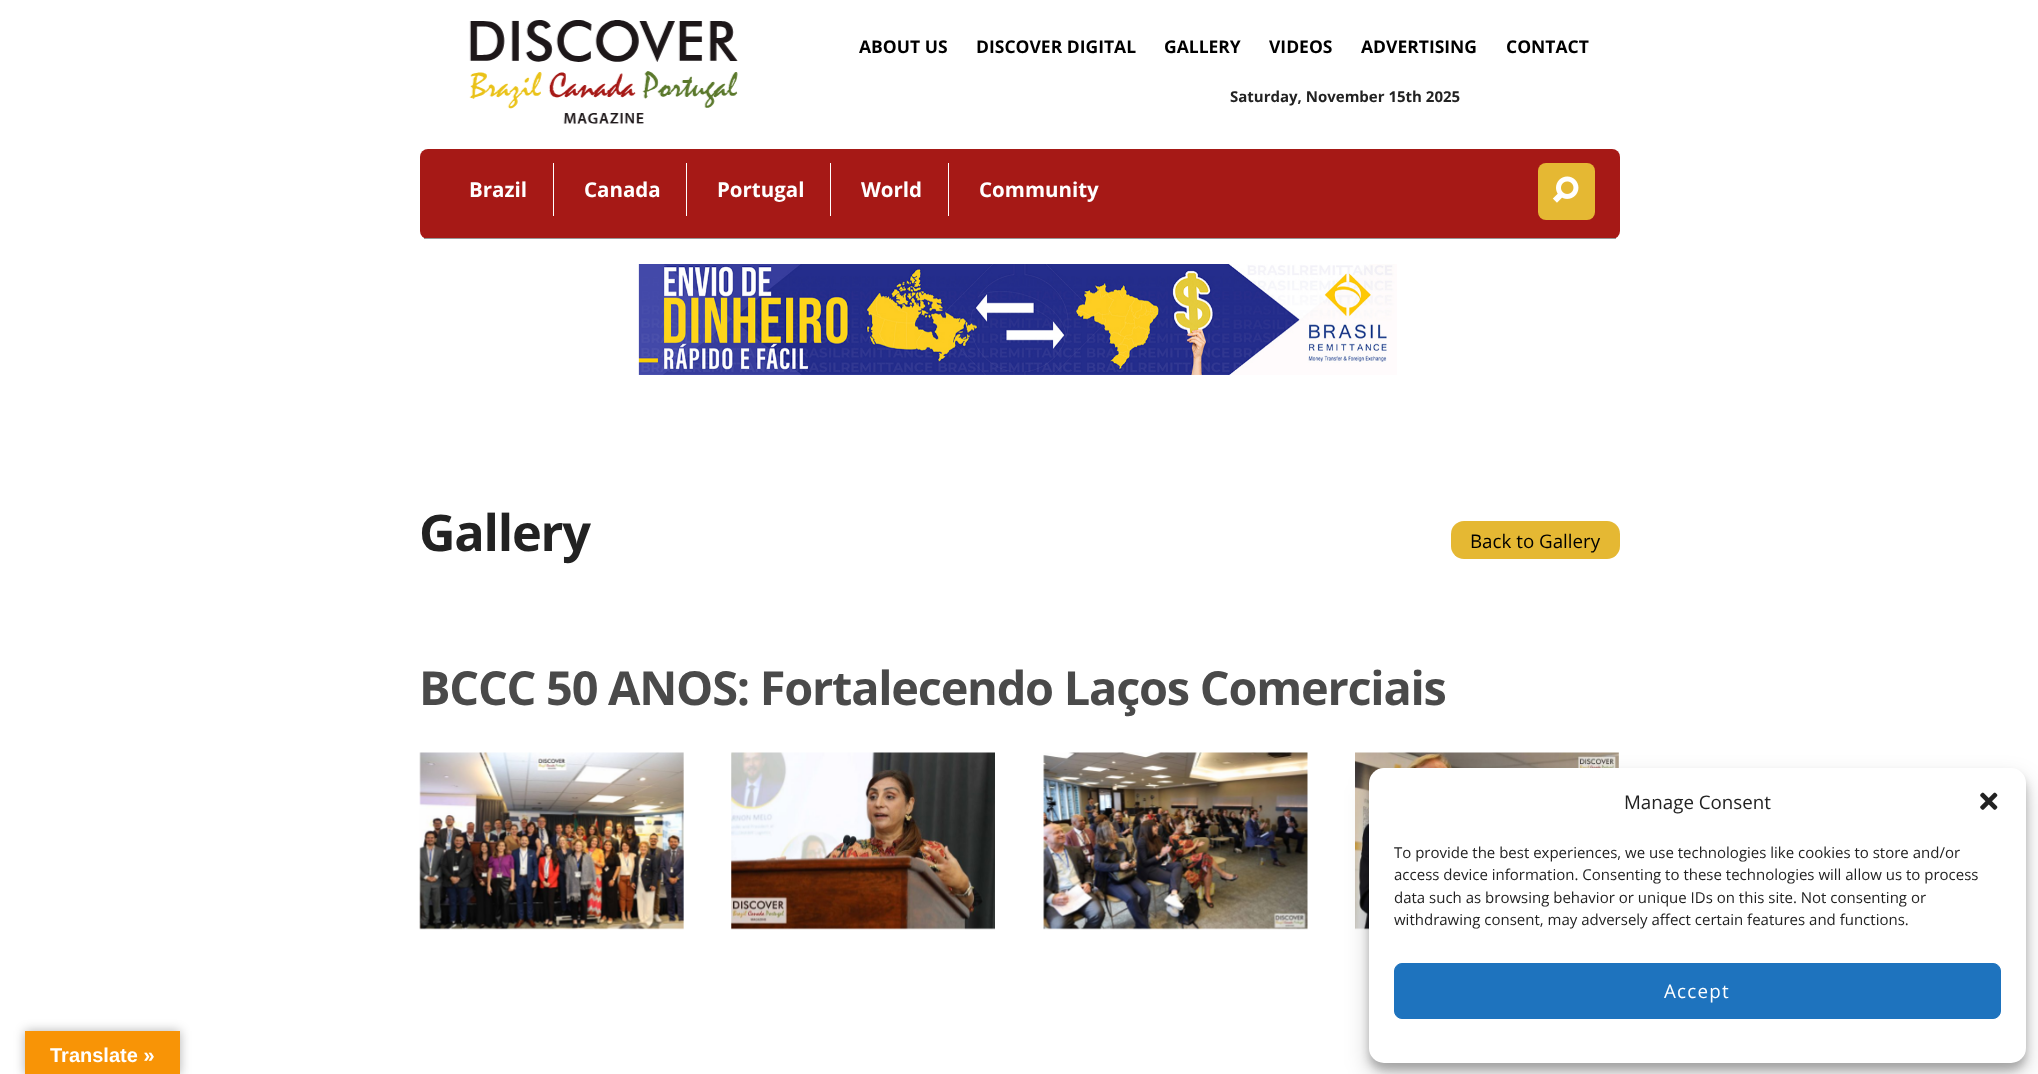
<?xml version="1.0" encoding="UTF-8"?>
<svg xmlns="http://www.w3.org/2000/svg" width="2038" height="1074">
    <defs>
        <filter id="blur1" x="-50%" y="-200%" width="200%" height="500%"><feGaussianBlur stdDeviation="4"/></filter>
        <filter id="blur2" x="-50%" y="-200%" width="200%" height="500%"><feGaussianBlur stdDeviation="12.5"/></filter>
        <filter id="blur3" x="-50%" y="-200%" width="200%" height="500%"><feGaussianBlur stdDeviation="5.5"/></filter>
    </defs>
    <rect width="100%" height="100%" fill="#FFFFFF"/>
    <text x="859" y="53" font-family="Open Sans" font-size="17.5" font-weight="700" fill="#000000">ABOUT US</text>
    <text x="976" y="53" font-family="Open Sans" font-size="17.5" font-weight="700" fill="#000000">DISCOVER DIGITAL</text>
    <text x="1164" y="53" font-family="Open Sans" font-size="17.5" font-weight="700" fill="#000000">GALLERY</text>
    <text x="1269" y="53" font-family="Open Sans" font-size="17.5" font-weight="700" fill="#000000">VIDEOS</text>
    <text x="1361" y="53" font-family="Open Sans" font-size="17.5" font-weight="700" fill="#000000">ADVERTISING</text>
    <text x="1506" y="53" font-family="Open Sans" font-size="17.5" font-weight="700" fill="#000000">CONTACT</text>
    <text x="1230" y="102" font-family="Open Sans" font-size="15" font-weight="700" fill="#222222">Saturday, November 15th 2025</text>
    <image x="469" y="20" width="269" height="104" href="img_01.png"/>
    <rect x="420" y="149" width="1200" height="90" rx="8" fill="#A61916"/>
    <rect x="424" y="238" width="1192" height="1" fill="#979797"/>
    <text x="469" y="197" font-family="Open Sans" font-size="20.5" font-weight="700" fill="#FFFFFF">Brazil</text>
    <rect x="553" y="163" width="1" height="53" fill="#FFFFFF"/>
    <text x="584" y="197" font-family="Open Sans" font-size="20.5" font-weight="700" fill="#FFFFFF">Canada</text>
    <rect x="686" y="163" width="1" height="53" fill="#FFFFFF"/>
    <text x="717" y="197" font-family="Open Sans" font-size="20.5" font-weight="700" fill="#FFFFFF">Portugal</text>
    <rect x="830" y="163" width="1" height="53" fill="#FFFFFF"/>
    <text x="861" y="197" font-family="Open Sans" font-size="20.5" font-weight="700" fill="#FFFFFF">World</text>
    <rect x="948" y="163" width="1" height="53" fill="#FFFFFF"/>
    <text x="979" y="197" font-family="Open Sans" font-size="20.5" font-weight="700" fill="#FFFFFF">Community</text>
    <rect x="1538" y="163" width="57" height="57" rx="8" fill="#E5B833"/>
    <image x="1552" y="176" width="27" height="27" href="img_02.png"/>
    <image x="638" y="264" width="759" height="111" href="img_03.png"/>
    <text x="419" y="551" font-family="Open Sans" font-size="50.5" font-weight="700" letter-spacing="-1.25" fill="#222222">Gallery</text>
    <rect x="1451" y="521" width="169" height="38" rx="13" fill="#E5B833"/>
    <text x="1470" y="548" font-family="Open Sans" font-size="18.75" fill="#000000">Back to Gallery</text>
    <text x="419" y="705" font-family="Open Sans" font-size="46.9" font-weight="700" letter-spacing="-1.25" fill="#4A4A4A">BCCC 50 ANOS: Fortalecendo Laços Comerciais</text>
    <image x="419" y="752" width="265" height="178" href="img_04.png"/>
    <image x="731" y="752" width="264" height="178" href="img_05.png"/>
    <image x="1043" y="752" width="265" height="178" href="img_06.png"/>
    <image x="1355" y="752" width="264" height="178" href="img_07.png"/>
    <rect x="1369" y="775" width="657" height="295" rx="15" fill="#000000" fill-opacity="0.23" filter="url(#blur1)"/>
    <rect x="1369" y="780" width="657" height="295" rx="15" fill="#000000" fill-opacity="0.19" filter="url(#blur2)"/>
    <rect x="1369" y="768" width="657" height="295" rx="15" fill="#FFFFFF"/>
    <text x="1624" y="809" font-family="Open Sans" font-size="18.75" fill="#222222">Manage Consent</text>
    <image x="1980" y="792" width="18" height="18" href="img_08.png"/>
    <text font-family="Open Sans" font-size="15" fill="#222222">
        <tspan x="1394" y="858">To provide the best experiences, we use technologies like cookies to store and/or</tspan>
        <tspan x="1394" y="880">access device information. Consenting to these technologies will allow us to process</tspan>
        <tspan x="1394" y="903">data such as browsing behavior or unique IDs on this site. Not consenting or</tspan>
        <tspan x="1394" y="925">withdrawing consent, may adversely affect certain features and functions.</tspan>
    </text>
    <rect x="1394.5" y="963.5" width="606" height="55" rx="7.5" fill="#1E73BE" stroke="#1E73BE"/>
    <text x="1664" y="998" font-family="Open Sans" font-size="18.75" letter-spacing="1.25" fill="#FFFFFF">Accept</text>
    <rect x="25" y="1031" width="155" height="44" fill="#000000" fill-opacity="0.3" filter="url(#blur3)"/>
    <rect x="25" y="1031" width="155" height="43" fill="#F89406"/>
    <text x="50" y="1062" font-family="Liberation Sans" font-size="20" font-weight="700" fill="#FFFFFF">Translate »</text>
</svg>
